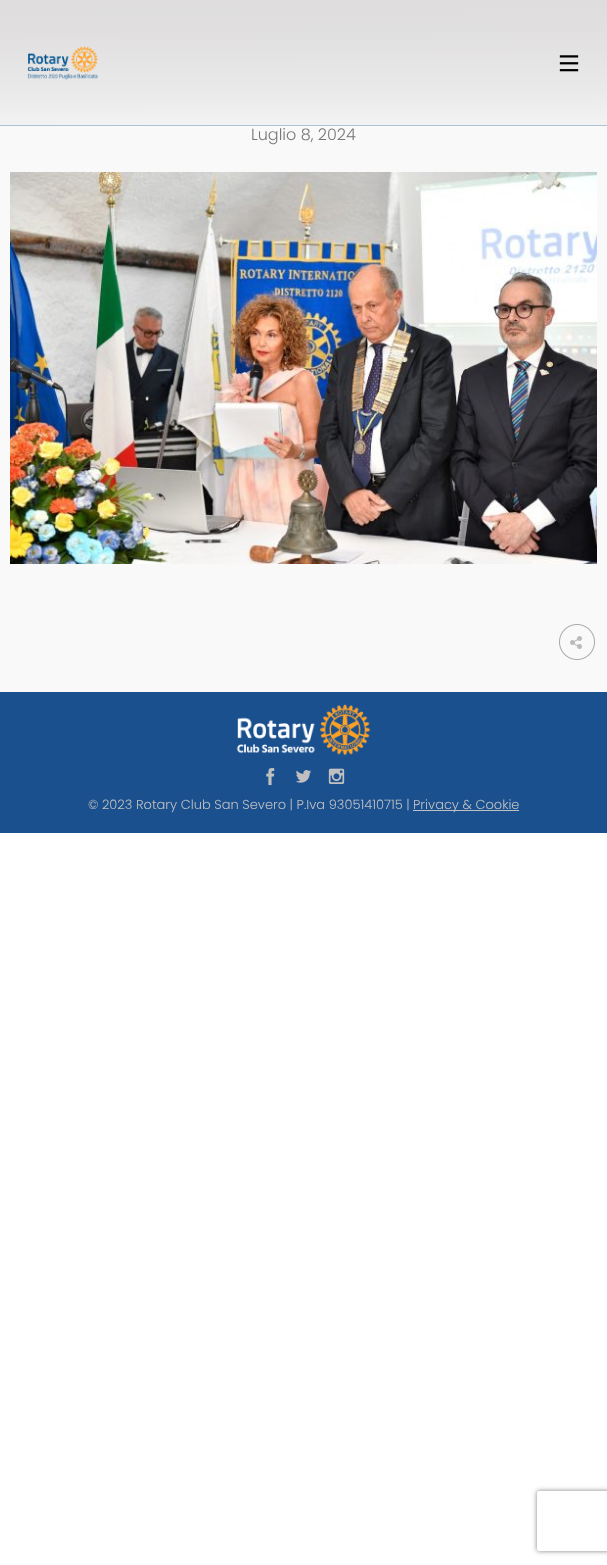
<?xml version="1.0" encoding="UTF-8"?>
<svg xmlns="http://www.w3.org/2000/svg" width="607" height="1565">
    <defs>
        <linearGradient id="g1" gradientUnits="userSpaceOnUse" x1="303" y1="0" x2="304" y2="500"><stop offset="0" stop-color="#C8C5C5" stop-opacity="0.55"/><stop offset="0.33" stop-color="#FFFFFF" stop-opacity="0.92"/><stop offset="0.66" stop-color="#FFFFFF"/><stop offset="1" stop-color="#FFFFFF" stop-opacity="0.5"/></linearGradient>
        <clipPath id="clip1"><path d="M 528 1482 H 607 V 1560 H 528 Z M 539 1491 H 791 C 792 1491 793 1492 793 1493 V 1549 C 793 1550 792 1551 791 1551 H 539 C 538 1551 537 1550 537 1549 V 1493 C 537 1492 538 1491 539 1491 Z" clip-rule="evenodd"/></clipPath>
        <filter id="blur1" x="-50%" y="-200%" width="200%" height="500%"><feGaussianBlur stdDeviation="2.5"/></filter>
    </defs>
    <rect width="100%" height="100%" fill="#FFFFFF"/>
    <rect x="0" y="0" width="607" height="692" fill="#F9F9F9"/>
    <rect x="0" y="0" width="607" height="125" fill="url(#g1)"/>
    <rect x="0" y="125" width="607" height="1" fill="#ABC3D5"/>
    <image x="27" y="46" width="71" height="34" href="img_01.png"/>
    <image x="559" y="55" width="20" height="17" href="img_02.png"/>
    <text x="251" y="140" font-family="Poppins" font-size="16" font-weight="300" fill="#777777">Luglio 8, 2024</text>
    <image x="10" y="172" width="587" height="392" href="img_03.png"/>
    <image x="559" y="624" width="36" height="36" href="img_04.png"/>
    <rect x="0" y="692" width="607" height="141" fill="#1B508F"/>
    <image x="236" y="704" width="135" height="52" href="img_05.png"/>
    <image x="266" y="768" width="9" height="18" href="img_06.png"/>
    <image x="295" y="770" width="17" height="13" href="img_07.png"/>
    <image x="328" y="768" width="17" height="16" href="img_08.png"/>
    <text x="88" y="809" font-family="Poppins" font-size="13" font-weight="300" fill="#C0C0C0">© 2023 Rotary Club San Severo | P.Iva 93051410715 |</text>
    <rect x="413" y="810" width="106" height="1" fill="#C0C0C0"/>
    <text x="413" y="809" font-family="Poppins" font-size="13" font-weight="300" fill="#C0C0C0">Privacy &amp; Cookie</text>
    <g clip-path="url(#clip1)">
        <rect x="537" y="1491" width="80" height="60" rx="2" fill="#808080" filter="url(#blur1)"/>
    </g>
</svg>
